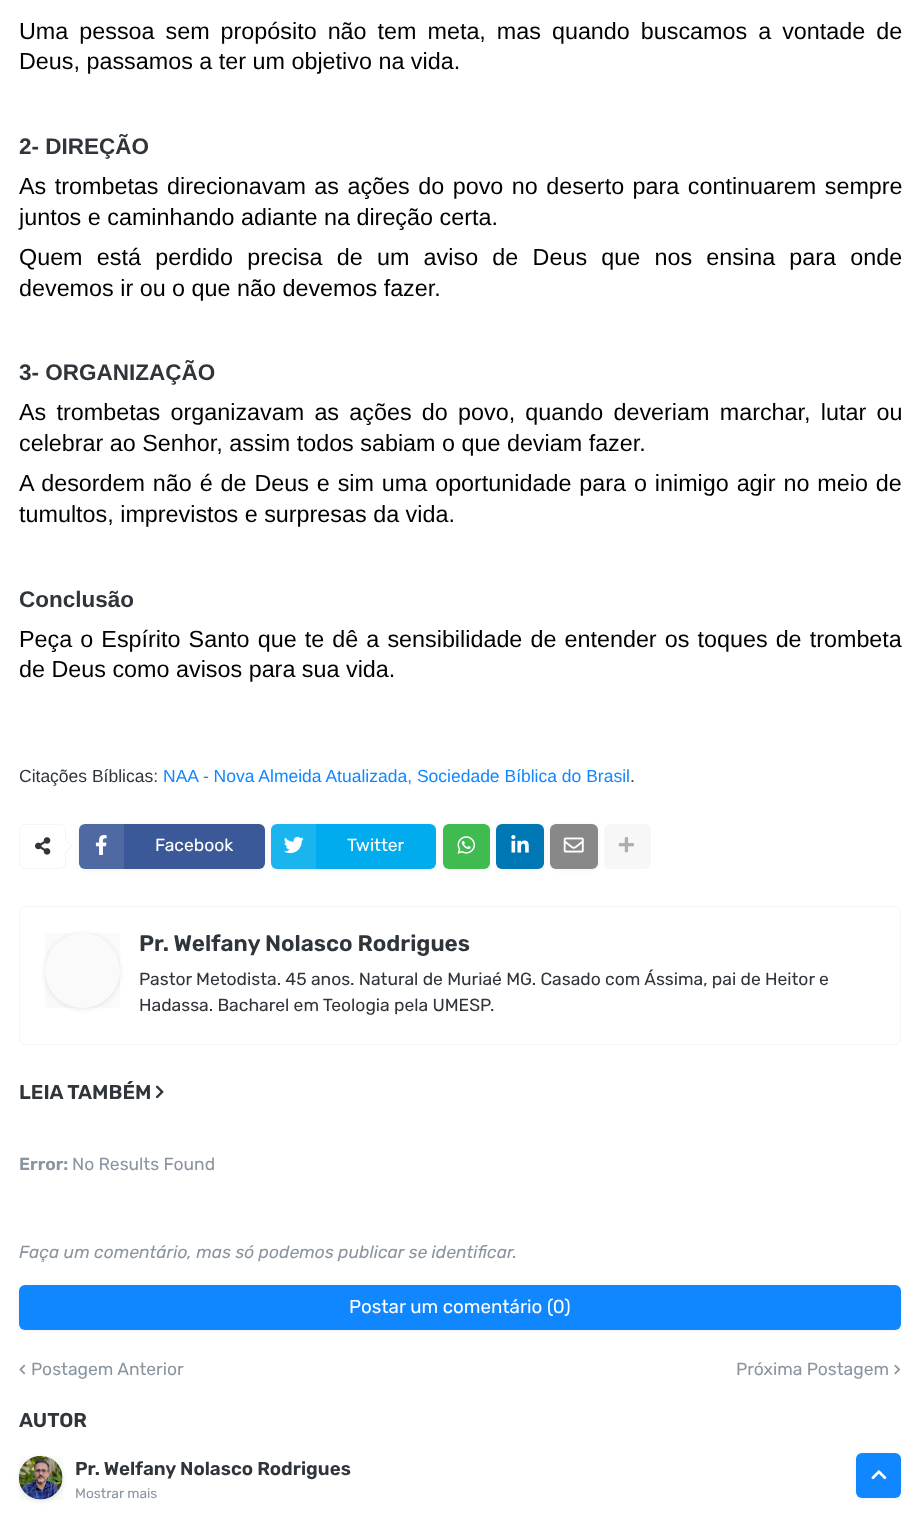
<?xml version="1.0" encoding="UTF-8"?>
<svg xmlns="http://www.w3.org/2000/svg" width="919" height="1522">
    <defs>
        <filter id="blur1" x="-50%" y="-200%" width="200%" height="500%"><feGaussianBlur stdDeviation="2.5"/></filter>
        <clipPath id="clip1"><path d="M 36 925 H 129 V 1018 H 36 Z M 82.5 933 C 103 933 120 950 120 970.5 C 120 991 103 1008 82.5 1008 C 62 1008 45 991 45 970.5 C 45 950 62 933 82.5 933 Z" clip-rule="evenodd"/></clipPath>
    </defs>
    <rect width="100%" height="100%" fill="#FFFFFF"/>
    <text font-family="Liberation Sans" font-size="23.35" fill="#000000">
        <tspan x="19" y="39" word-spacing="4.5">Uma pessoa sem propósito não tem meta, mas quando buscamos a vontade de</tspan>
        <tspan x="19" y="69">Deus, passamos a ter um objetivo na vida.</tspan>
    </text>
    <text x="19" y="154" font-family="Liberation Sans" font-size="22.5" font-weight="700" fill="#2F353B">2- DIREÇÃO</text>
    <text font-family="Liberation Sans" font-size="23.35" fill="#000000">
        <tspan x="19" y="194" word-spacing="2">As trombetas direcionavam as ações do povo no deserto para continuarem sempre</tspan>
        <tspan x="19" y="225">juntos e caminhando adiante na direção certa.</tspan>
        <tspan x="19" y="265" word-spacing="7.75">Quem está perdido precisa de um aviso de Deus que nos ensina para onde</tspan>
        <tspan x="19" y="296">devemos ir ou o que não devemos fazer.</tspan>
    </text>
    <text x="19" y="380" font-family="Liberation Sans" font-size="22.5" font-weight="700" fill="#2F353B">3- ORGANIZAÇÃO</text>
    <text font-family="Liberation Sans" font-size="23.35" fill="#000000">
        <tspan x="19" y="420" word-spacing="3.75">As trombetas organizavam as ações do povo, quando deveriam marchar, lutar ou</tspan>
        <tspan x="19" y="451">celebrar ao Senhor, assim todos sabiam o que deviam fazer.</tspan>
        <tspan x="19" y="491" word-spacing="1.4">A desordem não é de Deus e sim uma oportunidade para o inimigo agir no meio de</tspan>
        <tspan x="19" y="522">tumultos, imprevistos e surpresas da vida.</tspan>
    </text>
    <text x="19" y="607" font-family="Liberation Sans" font-size="22.5" font-weight="700" fill="#2F353B">Conclusão</text>
    <text font-family="Liberation Sans" font-size="23.35" fill="#000000">
        <tspan x="19" y="647" word-spacing="1.6">Peça o Espírito Santo que te dê a sensibilidade de entender os toques de trombeta</tspan>
        <tspan x="19" y="677">de Deus como avisos para sua vida.</tspan>
    </text>
    <text x="19" y="782" font-family="Liberation Sans" font-size="17.5" fill="#2F353B">Citações Bíblicas:</text>
    <text x="163" y="782" font-family="Liberation Sans" font-size="17.5" fill="#1087FF">NAA - Nova Almeida Atualizada, Sociedade Bíblica do Brasil</text>
    <text x="630" y="782" font-family="Liberation Sans" font-size="17.5" fill="#2F353B">.</text>
    <rect x="19.5" y="824.5" width="46" height="44" rx="5.5" fill="none" stroke="#F5F5F5"/>
    <image x="35" y="837" width="16" height="18" href="img_01.png"/>
    <path d="M 65 854 V 839 L 72.5 846 Z" fill="#9B9B9B" fill-opacity="0.1"/>
    <path d="M 65 852.5 V 840 L 71 846 Z" fill="#FFFFFF"/>
    <rect x="79" y="825" width="186" height="45" rx="6" fill="#000000" fill-opacity="0.05" filter="url(#blur1)"/>
    <rect x="79" y="824" width="186" height="45" rx="6" fill="#3B5999"/>
    <path d="M 85 824 H 124 V 869 H 85 C 81.5 869 79 866.5 79 863 V 830 C 79 826.5 81.5 824 85 824 Z" fill="#FFFFFF" fill-opacity="0.1"/>
    <image x="95" y="835" width="12" height="20" href="img_02.png"/>
    <text x="155" y="851" font-family="Rubik" font-size="17.5" fill="#FFFFFF">Facebook</text>
    <rect x="271" y="825" width="165" height="45" rx="6" fill="#000000" fill-opacity="0.05" filter="url(#blur1)"/>
    <rect x="271" y="824" width="165" height="45" rx="6" fill="#00ACEE"/>
    <path d="M 277 824 H 316 V 869 H 277 C 273.5 869 271 866.5 271 863 V 830 C 271 826.5 273.5 824 277 824 Z" fill="#FFFFFF" fill-opacity="0.1"/>
    <image x="283" y="836" width="21" height="18" href="img_03.png"/>
    <text x="347" y="851" font-family="Rubik" font-size="17.5" fill="#FFFFFF">Twitter</text>
    <rect x="443" y="825" width="47" height="45" rx="6" fill="#000000" fill-opacity="0.05" filter="url(#blur1)"/>
    <rect x="443" y="824" width="47" height="45" rx="6" fill="#3FBB50"/>
    <image x="457" y="836" width="18" height="18" href="img_04.png"/>
    <rect x="496" y="825" width="48" height="45" rx="6" fill="#000000" fill-opacity="0.05" filter="url(#blur1)"/>
    <rect x="496" y="824" width="48" height="45" rx="6" fill="#0077B5"/>
    <image x="511" y="835" width="18" height="18" href="img_05.png"/>
    <rect x="550" y="825" width="48" height="45" rx="6" fill="#000000" fill-opacity="0.05" filter="url(#blur1)"/>
    <rect x="550" y="824" width="48" height="45" rx="6" fill="#888888"/>
    <image x="563" y="837" width="21" height="16" href="img_06.png"/>
    <rect x="604" y="824" width="47" height="45" rx="6" fill="#9B9B9B" fill-opacity="0.08"/>
    <image x="618" y="837" width="17" height="16" href="img_07.png"/>
    <rect x="19.5" y="906.5" width="881" height="138" rx="5.5" fill="none" stroke="#F5F5F5"/>
    <g clip-path="url(#clip1)">
        <rect x="45" y="934" width="75" height="75" rx="37.5" fill="#000000" fill-opacity="0.1" filter="url(#blur1)"/>
    </g>
    <rect x="45" y="933" width="75" height="75" fill="#9B9B9B" fill-opacity="0.05"/>
    <text x="139" y="951" font-family="Rubik" font-size="22.5" font-weight="600" fill="#2F353B">Pr. Welfany Nolasco Rodrigues</text>
    <text font-family="Rubik" font-size="17.5" fill="#2F353B">
        <tspan x="139" y="985">Pastor Metodista. 45 anos. Natural de Muriaé MG. Casado com Ássima, pai de Heitor e</tspan>
        <tspan x="139" y="1011">Hadassa. Bacharel em Teologia pela UMESP.</tspan>
    </text>
    <text x="19" y="1099" font-family="Rubik" font-size="20" font-weight="600" fill="#2F353B">LEIA TAMBÉM</text>
    <image x="155" y="1085" width="9" height="14" href="img_08.png"/>
    <text x="19" y="1170" font-family="Rubik" font-size="17.5" font-weight="600" fill="#8995A0">Error:</text>
    <text x="72" y="1170" font-family="Rubik" font-size="17.5" fill="#8995A0">No Results Found</text>
    <text x="19" y="1258" font-family="Rubik" font-size="17.5" font-style="italic" fill="#8995A0">Faça um comentário, mas só podemos publicar se identificar.</text>
    <rect x="19" y="1286" width="882" height="45" rx="6" fill="#000000" fill-opacity="0.05" filter="url(#blur1)"/>
    <rect x="19" y="1285" width="882" height="45" rx="6" fill="#1087FF"/>
    <text x="349" y="1313" font-family="Rubik" font-size="18.75" fill="#FFFFFF">Postar um comentário (0)</text>
    <image x="19" y="1364" width="7" height="11" href="img_09.png"/>
    <text x="31" y="1375" font-family="Rubik" font-size="17.5" fill="#8995A0">Postagem Anterior</text>
    <text x="736" y="1375" font-family="Rubik" font-size="17.5" fill="#8995A0">Próxima Postagem</text>
    <image x="894" y="1364" width="7" height="11" href="img_10.png"/>
    <text x="19" y="1427" font-family="Rubik" font-size="20" font-weight="600" fill="#2F353B">AUTOR</text>
    <rect x="19" y="1458" width="44" height="43" rx="21.5" fill="#000000" fill-opacity="0.1" filter="url(#blur1)"/>
    <rect x="19" y="1456" width="44" height="44" fill="#9B9B9B" fill-opacity="0.05"/>
    <image x="18" y="1455" width="45" height="45" href="img_11.png"/>
    <text x="75" y="1475" font-family="Rubik" font-size="18.75" font-weight="600" fill="#2F353B">Pr. Welfany Nolasco Rodrigues</text>
    <text x="75" y="1498" font-family="Rubik" font-size="13.75" fill="#8995A0">Mostrar mais</text>
    <rect x="856" y="1454" width="45" height="45" rx="6" fill="#000000" fill-opacity="0.05" filter="url(#blur1)"/>
    <rect x="856" y="1453" width="45" height="45" rx="6" fill="#1087FF"/>
    <image x="871" y="1470" width="16" height="10" href="img_12.png"/>
</svg>
